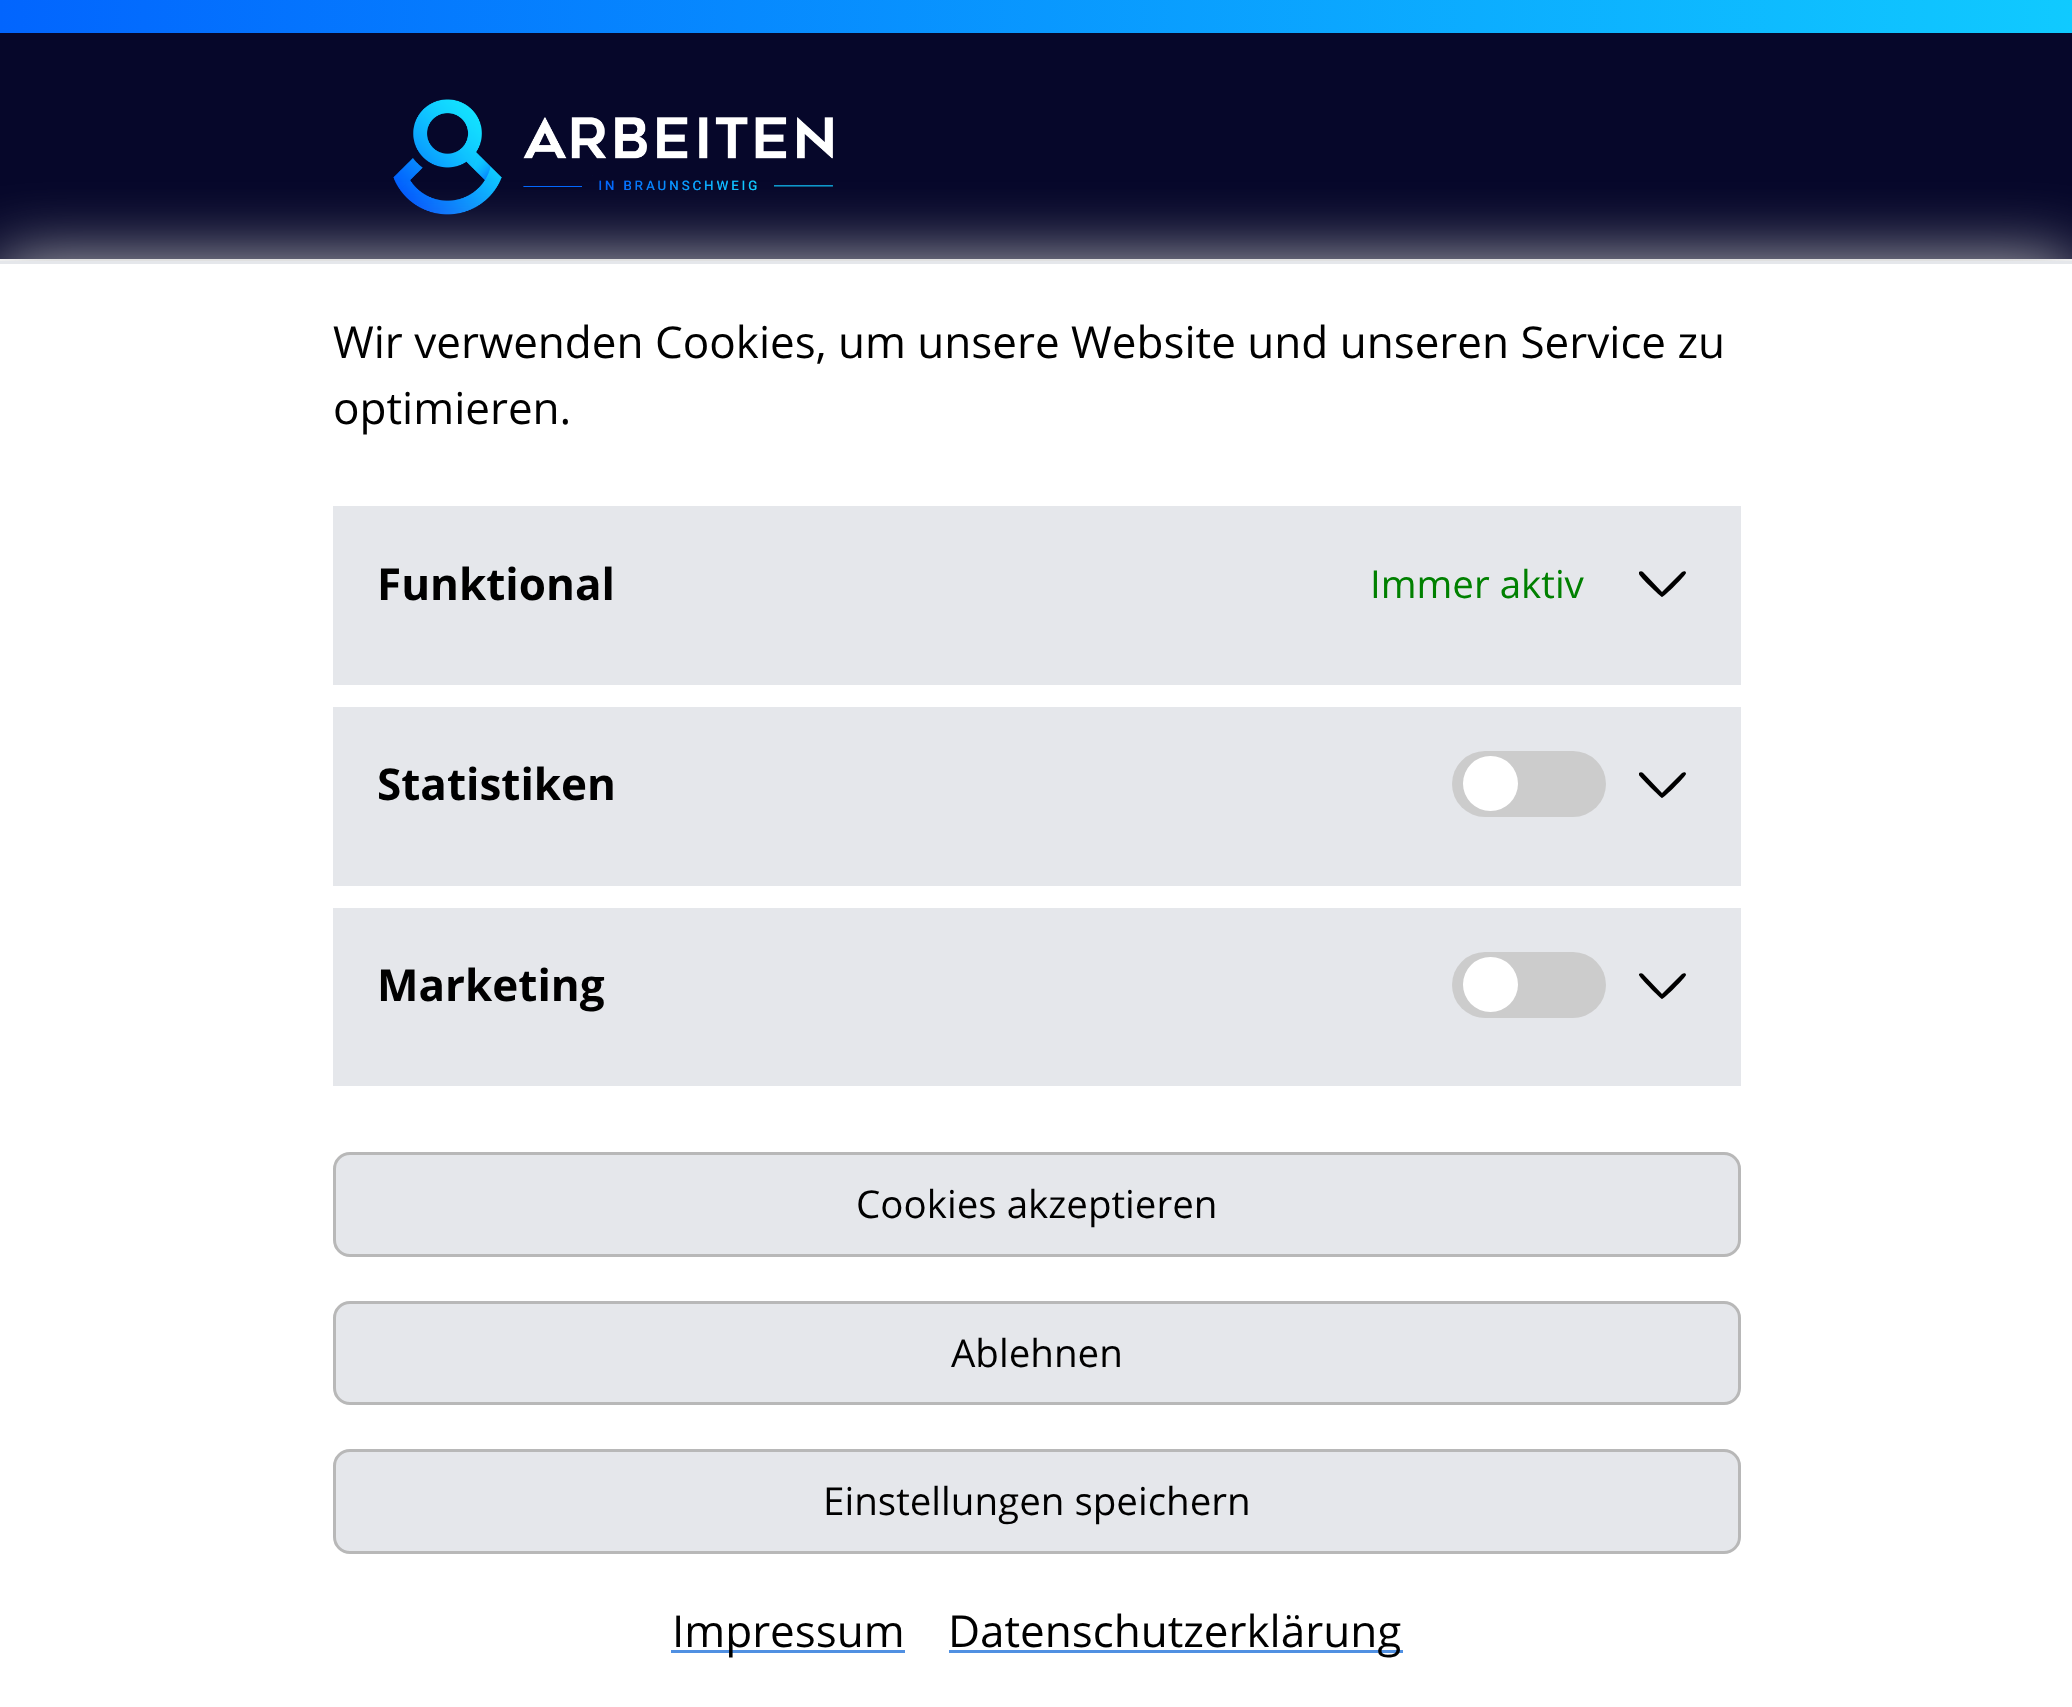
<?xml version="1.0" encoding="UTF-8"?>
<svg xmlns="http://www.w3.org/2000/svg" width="2072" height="1707">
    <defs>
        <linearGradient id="g1" gradientUnits="userSpaceOnUse" x1="0" y1="17" x2="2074" y2="16"><stop offset="0" stop-color="#0265FE"/><stop offset="1" stop-color="#10CAFF"/></linearGradient>
        <filter id="blur1" x="-50%" y="-200%" width="200%" height="500%"><feGaussianBlur stdDeviation="34.5"/></filter>
    </defs>
    <rect width="100%" height="100%" fill="#FFFFFF"/>
    <rect x="0" y="0" width="2072" height="33" fill="url(#g1)"/>
    <rect x="0" y="33" width="2072" height="226" fill="#06072A"/>
    <image x="393" y="99" width="440" height="116" href="img_01.png"/>
    <rect x="0" y="261" width="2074" height="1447" fill="#C0C0C0" filter="url(#blur1)"/>
    <rect x="0" y="264" width="2072" height="1443" fill="#FFFFFF"/>
    <rect x="0" y="261" width="2072" height="3" fill="#E5E7EB"/>
    <text font-family="Open Sans" font-size="44" fill="#000000">
        <tspan x="333" y="358">Wir verwenden Cookies, um unsere Website und unseren Service zu</tspan>
        <tspan x="333" y="424">optimieren.</tspan>
    </text>
    <rect x="333" y="506" width="1408" height="179" fill="#E5E7EB"/>
    <text x="377" y="600" font-family="Open Sans" font-size="44" font-weight="700" fill="#000000">Funktional</text>
    <text x="1370" y="598" font-family="Open Sans" font-size="38.5" fill="#008000">Immer aktiv</text>
    <path d="M 1662 592 L 1682 572 C 1684 571 1686 571 1686 573 C 1686 575 1664 597 1662 597 C 1661 597 1639 576 1639 574 V 572 C 1640 571 1642 571 1643 572 Z" fill="#000000"/>
    <rect x="333" y="707" width="1408" height="179" fill="#E5E7EB"/>
    <text x="377" y="800" font-family="Open Sans" font-size="44" font-weight="700" fill="#000000">Statistiken</text>
    <rect x="1452" y="751" width="154" height="66" rx="33" fill="#CCCCCC"/>
    <circle cx="1490.5" cy="783.5" r="27.5" fill="#FFFFFF"/>
    <path d="M 1662 793 L 1682 773 C 1684 772 1686 772 1686 774 C 1686 776 1664 798 1662 798 C 1661 798 1639 776 1639 775 V 773 C 1640 772 1642 772 1643 773 Z" fill="#000000"/>
    <rect x="333" y="908" width="1408" height="178" fill="#E5E7EB"/>
    <text x="377" y="1001" font-family="Open Sans" font-size="44" font-weight="700" fill="#000000">Marketing</text>
    <rect x="1452" y="952" width="154" height="66" rx="33" fill="#CCCCCC"/>
    <circle cx="1490.5" cy="984.5" r="27.5" fill="#FFFFFF"/>
    <path d="M 1662 994 L 1682 974 C 1684 973 1686 973 1686 975 C 1686 977 1664 999 1662 999 C 1661 999 1639 977 1639 975 V 974 C 1640 973 1642 973 1643 974 Z" fill="#000000"/>
    <rect x="334.5" y="1153.5" width="1405" height="102" rx="15.5" fill="#E5E7EB" stroke="#B8B8B8" stroke-width="3"/>
    <text x="856" y="1218" font-family="Open Sans" font-size="38.5" fill="#000000">Cookies akzeptieren</text>
    <rect x="334.5" y="1302.5" width="1405" height="101" rx="15.5" fill="#E5E7EB" stroke="#B8B8B8" stroke-width="3"/>
    <text x="951" y="1367" font-family="Open Sans" font-size="38.5" fill="#000000">Ablehnen</text>
    <rect x="334.5" y="1450.5" width="1405" height="102" rx="15.5" fill="#E5E7EB" stroke="#B8B8B8" stroke-width="3"/>
    <text x="823" y="1515" font-family="Open Sans" font-size="38.5" fill="#000000">Einstellungen speichern</text>
    <rect x="671" y="1650" width="234" height="3" fill="#5090E2"/>
    <text x="672" y="1647" font-family="Open Sans" font-size="44" fill="#000000">Impressum</text>
    <rect x="949" y="1650" width="454" height="3" fill="#5090E2"/>
    <text x="948" y="1647" font-family="Open Sans" font-size="44" fill="#000000">Datenschutzerklärung</text>
</svg>
